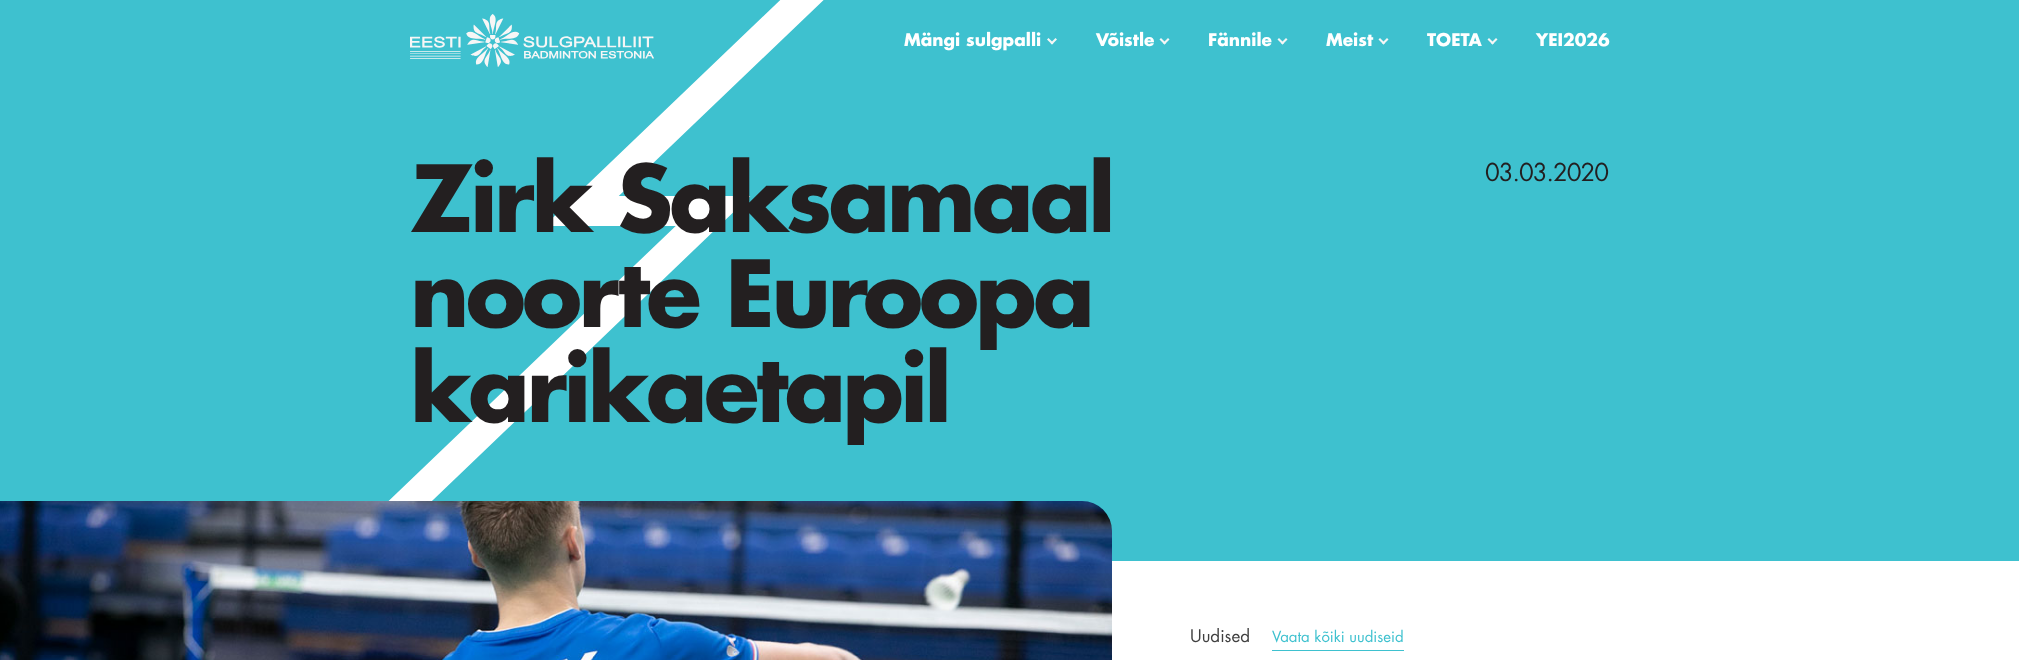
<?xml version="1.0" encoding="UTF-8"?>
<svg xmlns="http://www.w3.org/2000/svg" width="2019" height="660">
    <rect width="100%" height="100%" fill="#FFFFFF"/>
    <rect x="0" y="0" width="2019" height="561" fill="#3EC1CF"/>
    <path d="M 814.5 -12 L 581.5 211 H 713 L 380 530 H 511.5 L 313.5 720" fill="none" stroke="#FFFFFF" stroke-width="30" stroke-linecap="square"/>
    <image x="410" y="14" width="244" height="53" href="img_01.png"/>
    <text x="904" y="46" font-family="Futura" font-size="17" font-weight="700" fill="#FFFFFF">Mängi sulgpalli</text>
    <path d="M 1055.5 38 L 1057 39.5 L 1052 44.5 L 1050.5 43 Z" fill="#F6F6F6"/>
    <path d="M 1048.5 38 L 1053.5 43 L 1052 44.5 L 1047 39.5 Z" fill="#F6F6F6"/>
    <text x="1096" y="46" font-family="Futura" font-size="17" font-weight="700" fill="#FFFFFF">Võistle</text>
    <path d="M 1168 38 L 1169.5 39.5 L 1164.5 44.5 L 1163 43 Z" fill="#F6F6F6"/>
    <path d="M 1161 38 L 1166 43 L 1164.5 44.5 L 1159.5 39.5 Z" fill="#F6F6F6"/>
    <text x="1208" y="46" font-family="Futura" font-size="17" font-weight="700" fill="#FFFFFF">Fännile</text>
    <path d="M 1286 38 L 1287.5 39.5 L 1282.5 44.5 L 1281 43 Z" fill="#F6F6F6"/>
    <path d="M 1279 38 L 1284 43 L 1282.5 44.5 L 1277.5 39.5 Z" fill="#F6F6F6"/>
    <text x="1326" y="46" font-family="Futura" font-size="17" font-weight="700" fill="#FFFFFF">Meist</text>
    <path d="M 1387 38 L 1388.5 39.5 L 1383.5 44.5 L 1382 43 Z" fill="#F6F6F6"/>
    <path d="M 1380 38 L 1385 43 L 1383.5 44.5 L 1378.5 39.5 Z" fill="#F6F6F6"/>
    <text x="1427" y="46" font-family="Futura" font-size="17" font-weight="700" fill="#FFFFFF">TOETA</text>
    <path d="M 1496 38 L 1497.5 39.5 L 1492.5 44.5 L 1491 43 Z" fill="#F6F6F6"/>
    <path d="M 1489 38 L 1494 43 L 1492.5 44.5 L 1487.5 39.5 Z" fill="#F6F6F6"/>
    <text x="1536" y="46" font-family="Futura" font-size="17" font-weight="700" fill="#FFFFFF">YEI2026</text>
    <text font-family="Futura" font-size="90" font-weight="700" letter-spacing="-3.4" fill="#231F20">
        <tspan x="410" y="232">Zirk Saksamaal</tspan>
        <tspan x="410" y="327">noorte Euroopa</tspan>
        <tspan x="410" y="422">karikaetapil</tspan>
    </text>
    <text x="1485" y="181" font-family="Futura" font-size="24" letter-spacing="-1" fill="#231F20">03.03.2020</text>
    <image x="0" y="501" width="1112" height="159" href="img_02.png"/>
    <text x="1190" y="642" font-family="Futura" font-size="17" fill="#404040">Uudised</text>
    <text x="1272" y="642" font-family="Futura" font-size="15" fill="#3EC1CF">Vaata kõiki uudiseid</text>
    <rect x="1272" y="650" width="132" height="1" fill="#3EC1CF"/>
</svg>
